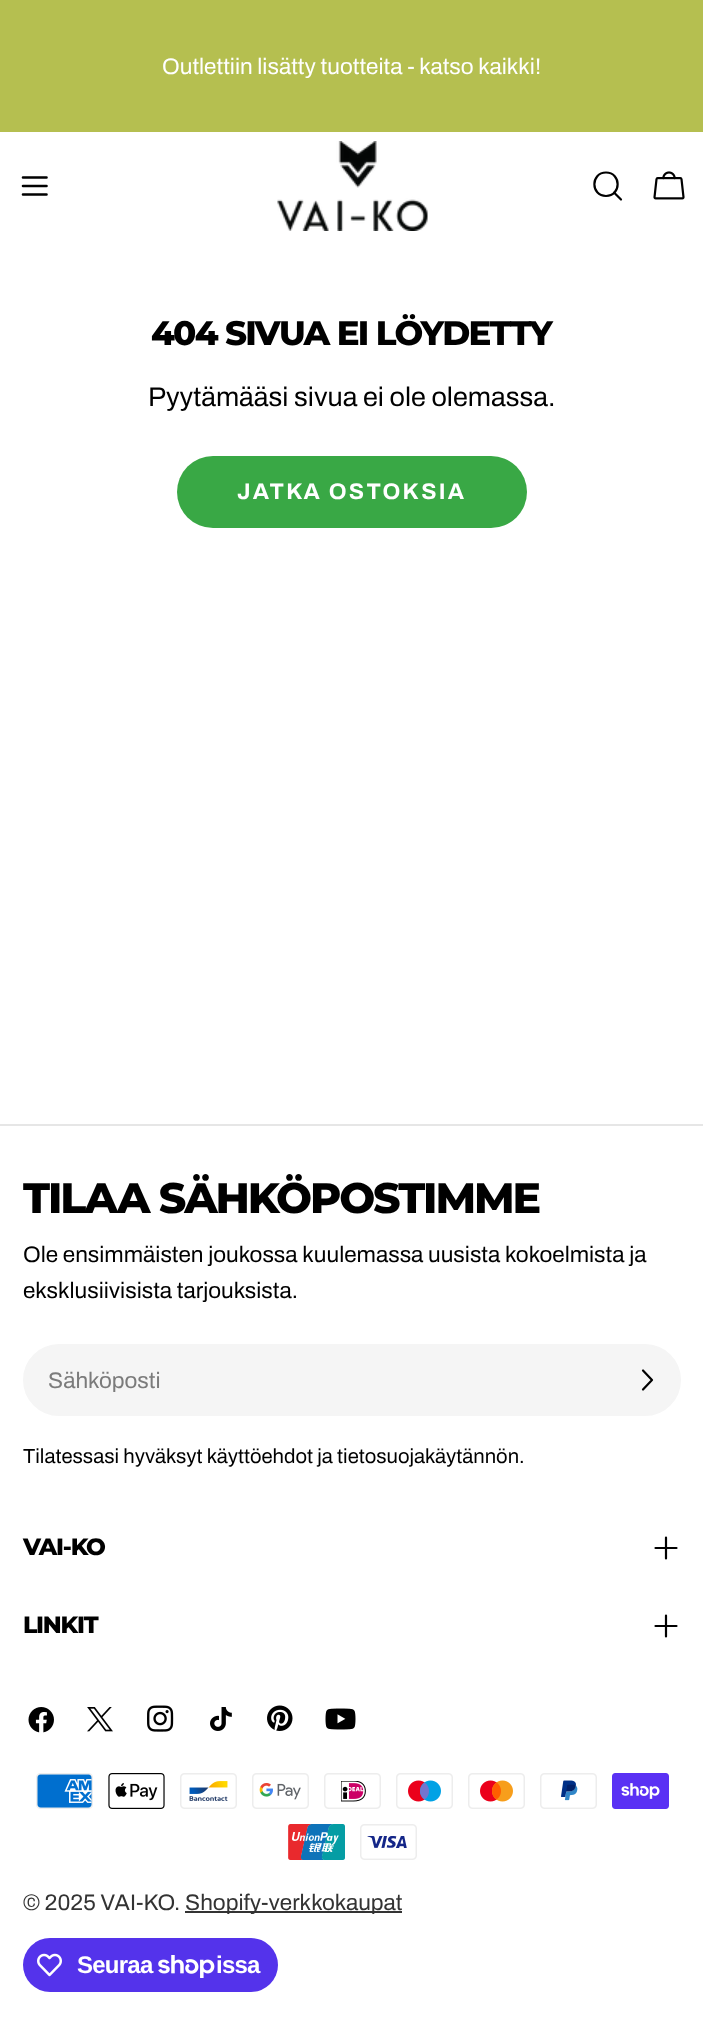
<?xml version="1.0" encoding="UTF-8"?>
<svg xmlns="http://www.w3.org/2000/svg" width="703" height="2040">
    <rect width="100%" height="100%" fill="#FFFFFF"/>
    <rect x="0" y="0" width="703" height="132" fill="#B5BF50"/>
    <text x="162" y="74" font-family="Archivo" font-size="22.5" fill="#FFFFFF">Outlettiin lisätty tuotteita - katso kaikki!</text>
    <path d="M 23 186 H 46.5 M 23 177.5 H 46.5 M 23 194.5 H 46.5" fill="none" stroke="#000000" stroke-width="2.6" stroke-linecap="round" stroke-linejoin="round"/>
    <image x="277" y="141" width="151" height="90" href="img_01.png"/>
    <path d="M 606 196 C 621.5 196 621.5 172.5 606 172.5 C 590.5 172.5 590.5 196 606 196 Z M 614 192.5 L 621 199.5" fill="none" stroke="#000000" stroke-width="2.2" stroke-linecap="round" stroke-linejoin="round"/>
    <image x="653" y="171" width="32" height="29" href="img_02.png"/>
    <text x="151" y="345" font-family="Montserrat" font-size="34" font-weight="800" letter-spacing="-1.7" fill="#000000">404 SIVUA EI LÖYDETTY</text>
    <text x="148" y="406" font-family="Archivo" font-size="27" fill="#000000">Pyytämääsi sivua ei ole olemassa.</text>
    <rect x="177" y="456" width="350" height="72" rx="36" fill="#39A845"/>
    <text x="237" y="499" font-family="Archivo" font-size="22.5" font-weight="700" letter-spacing="2.25" fill="#FFFFFF">JATKA OSTOKSIA</text>
    <rect x="0" y="1124" width="703" height="2" fill="#E6E6E6"/>
    <text x="23" y="1213" font-family="Montserrat" font-size="42.6" font-weight="800" letter-spacing="-2.1" fill="#000000">TILAA SÄHKÖPOSTIMME</text>
    <text font-family="Archivo" font-size="22.5" fill="#000000">
        <tspan x="23" y="1262">Ole ensimmäisten joukossa kuulemassa uusista kokoelmista ja</tspan>
        <tspan x="23" y="1298">eksklusiivisista tarjouksista.</tspan>
    </text>
    <rect x="24" y="1345" width="656" height="70" rx="35" fill="#F5F5F5" stroke="#F5F5F5" stroke-width="2"/>
    <text x="48" y="1388" font-family="Archivo" font-size="22.5" fill="#7B7B7B">Sähköposti</text>
    <path d="M 643 1370.5 L 652 1380 L 643 1389.5" fill="none" stroke="#000000" stroke-width="2.2" stroke-linecap="round" stroke-linejoin="round"/>
    <text x="23" y="1463" font-family="Archivo" font-size="20.25" fill="#000000">Tilatessasi hyväksyt käyttöehdot ja tietosuojakäytännön.</text>
    <text x="23" y="1555" font-family="Montserrat" font-size="23.5" font-weight="800" letter-spacing="-1.25" fill="#000000">VAI-KO</text>
    <path d="M 655.5 1548 H 676.5 M 666 1537.5 V 1558.5" fill="none" stroke="#000000" stroke-width="2.2" stroke-linecap="round" stroke-linejoin="round"/>
    <text x="23" y="1633" font-family="Montserrat" font-size="23.5" font-weight="800" letter-spacing="-1.25" fill="#000000">LINKIT</text>
    <path d="M 655.5 1626 H 676.5 M 666 1615.5 V 1636.5" fill="none" stroke="#000000" stroke-width="2.2" stroke-linecap="round" stroke-linejoin="round"/>
    <image x="28" y="1707" width="26" height="26" href="img_03.png"/>
    <image x="87" y="1707" width="26" height="25" href="img_04.png"/>
    <image x="147" y="1705" width="27" height="27" href="img_05.png"/>
    <image x="210" y="1707" width="22" height="24" href="img_06.png"/>
    <image x="267" y="1705" width="26" height="26" href="img_07.png"/>
    <image x="325" y="1708" width="31" height="22" href="img_08.png"/>
    <image x="36" y="1773" width="57" height="36" href="img_09.png"/>
    <image x="108" y="1773" width="57" height="36" href="img_10.png"/>
    <image x="180" y="1773" width="57" height="36" href="img_11.png"/>
    <image x="252" y="1773" width="57" height="36" href="img_12.png"/>
    <image x="324" y="1773" width="57" height="36" href="img_13.png"/>
    <image x="396" y="1773" width="57" height="36" href="img_14.png"/>
    <image x="468" y="1773" width="57" height="36" href="img_15.png"/>
    <image x="540" y="1773" width="57" height="36" href="img_16.png"/>
    <image x="612" y="1773" width="57" height="36" href="img_17.png"/>
    <image x="288" y="1824" width="57" height="36" href="img_18.png"/>
    <image x="360" y="1824" width="57" height="36" href="img_19.png"/>
    <text x="23" y="1910" font-family="Archivo" font-size="22.5" fill="#333333">© 2025 VAI-KO</text>
    <text x="174" y="1910" font-family="Archivo" font-size="22.5" fill="#333333">.</text>
    <rect x="185" y="1911" width="217" height="2" fill="#333333"/>
    <text x="185" y="1910" font-family="Archivo" font-size="22.5" fill="#333333">Shopify-verkkokaupat</text>
    <rect x="23" y="1938" width="255" height="54" rx="27" fill="#5433EB"/>
    <image x="37" y="1953" width="25" height="24" href="img_20.png"/>
    <text x="77" y="1973" font-family="Liberation Sans" font-size="24" font-weight="700" letter-spacing="-0.75" fill="#FFFFFF">Seuraa</text>
    <image x="158" y="1955" width="57" height="23" href="img_21.png"/>
    <text x="216" y="1973" font-family="Liberation Sans" font-size="24" font-weight="700" letter-spacing="-0.75" fill="#FFFFFF">issa</text>
</svg>
